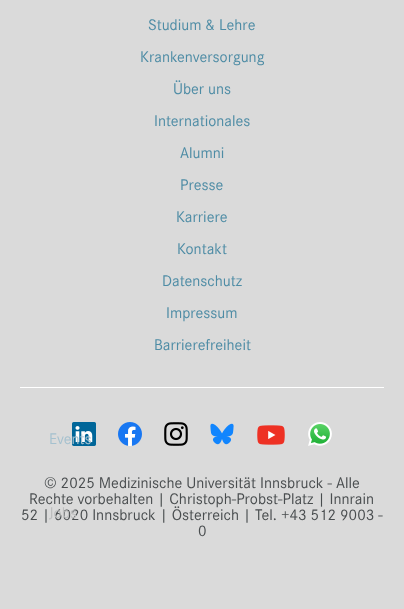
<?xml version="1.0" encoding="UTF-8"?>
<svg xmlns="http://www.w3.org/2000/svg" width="404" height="609">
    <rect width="100%" height="100%" fill="#DADADA"/>
    <rect x="20" y="387" width="364" height="1" fill="#FFFFFF"/>
    <text x="148" y="30" font-family="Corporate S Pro" font-size="16" fill="#4E8CA5">Studium &amp; Lehre</text>
    <text x="140" y="62" font-family="Corporate S Pro" font-size="16" fill="#4E8CA5">Krankenversorgung</text>
    <text x="173" y="94" font-family="Corporate S Pro" font-size="16" fill="#4E8CA5">Über uns</text>
    <text x="154" y="126" font-family="Corporate S Pro" font-size="16" fill="#4E8CA5">Internationales</text>
    <text x="180" y="158" font-family="Corporate S Pro" font-size="16" fill="#4E8CA5">Alumni</text>
    <text x="180" y="190" font-family="Corporate S Pro" font-size="16" fill="#4E8CA5">Presse</text>
    <text x="176" y="222" font-family="Corporate S Pro" font-size="16" fill="#4E8CA5">Karriere</text>
    <text x="177" y="254" font-family="Corporate S Pro" font-size="16" fill="#4E8CA5">Kontakt</text>
    <text x="162" y="286" font-family="Corporate S Pro" font-size="16" fill="#4E8CA5">Datenschutz</text>
    <text x="166" y="318" font-family="Corporate S Pro" font-size="16" fill="#4E8CA5">Impressum</text>
    <text x="154" y="350" font-family="Corporate S Pro" font-size="16" fill="#4E8CA5">Barrierefreiheit</text>
    <image x="72" y="422" width="24" height="24" href="img_01.png"/>
    <image x="118" y="422" width="24" height="24" href="img_02.png"/>
    <image x="164" y="422" width="24" height="24" href="img_03.png"/>
    <image x="210" y="423" width="24" height="22" href="img_04.png"/>
    <image x="257" y="425" width="28" height="20" href="img_05.png"/>
    <image x="308" y="422" width="24" height="24" href="img_06.png"/>
    <text x="44" y="488" font-family="Corporate S Pro" font-size="16" fill="#494D4F">© 2025 Medizinische Universität Innsbruck - Alle</text>
    <text x="29" y="504" font-family="Corporate S Pro" font-size="16" fill="#494D4F">Rechte vorbehalten | Christoph-Probst-Platz | Innrain</text>
    <text x="21" y="520" font-family="Corporate S Pro" font-size="16" fill="#494D4F">52 | 6020 Innsbruck | Österreich | Tel. +43 512 9003 -</text>
    <text x="198" y="536" font-family="Corporate S Pro" font-size="16" fill="#494D4F">0</text>
    <text x="49" y="444" font-family="Corporate S Pro" font-size="16" fill="#A5C1CF">Events</text>
    <text x="49" y="518" font-family="Corporate S Pro" font-size="16" fill="#BDBEBE">Jobs</text>
</svg>
